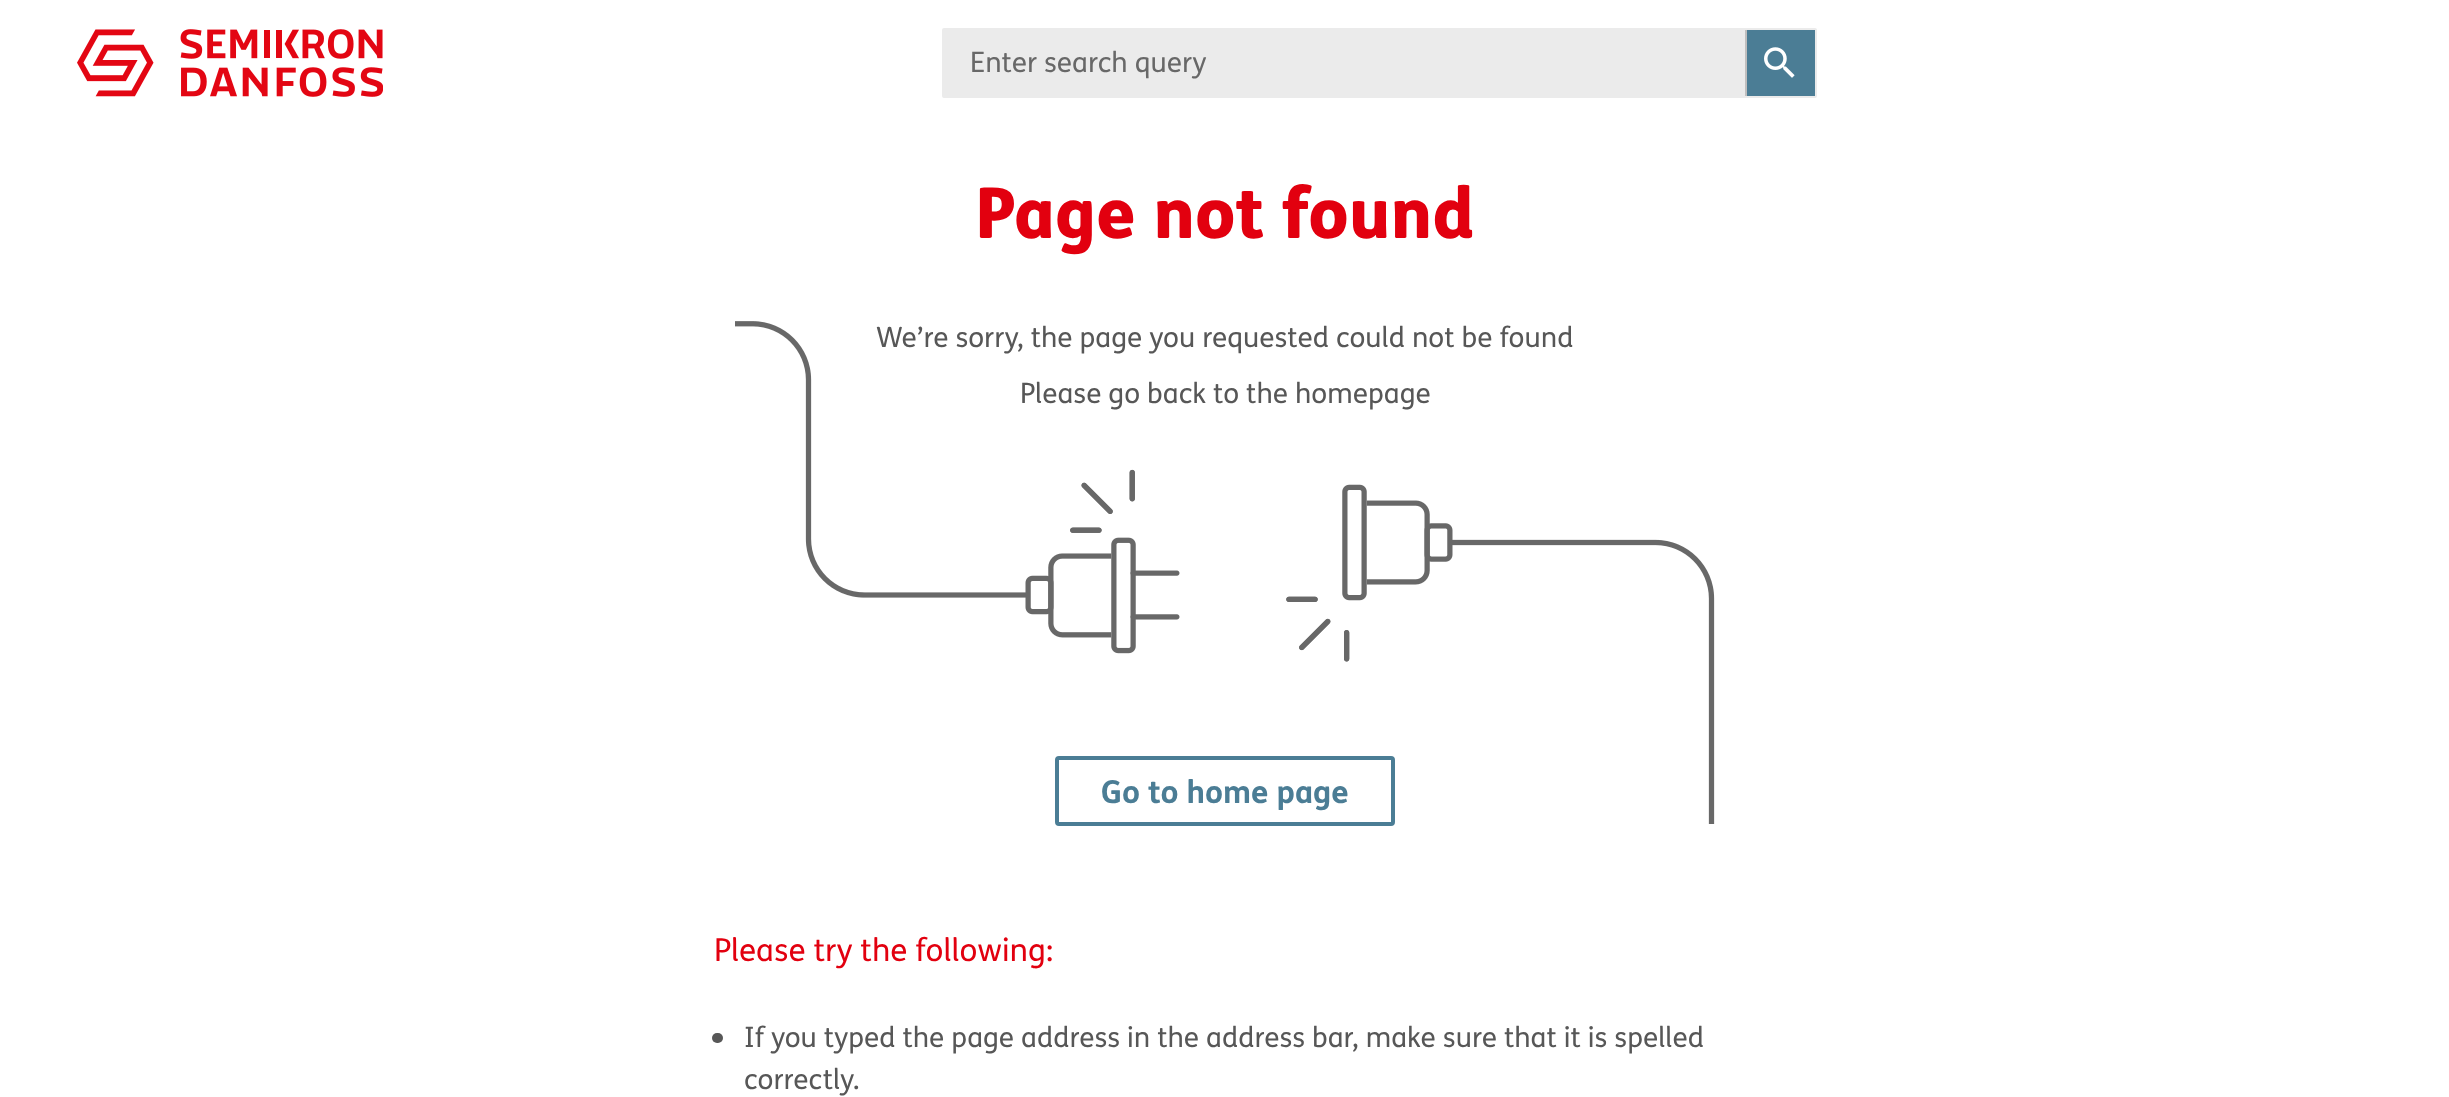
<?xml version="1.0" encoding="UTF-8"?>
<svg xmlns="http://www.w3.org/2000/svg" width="2449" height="1097">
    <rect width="100%" height="100%" fill="#FFFFFF"/>
    <image x="77" y="29" width="306" height="68" href="img_01.png"/>
    <rect x="943" y="29" width="873" height="68" rx="1" fill="none" stroke="#EBEBEB" stroke-width="2"/>
    <rect x="944" y="30" width="801" height="66" fill="#EBEBEB"/>
    <rect x="1745" y="30" width="2" height="66" fill="#BFBEBE"/>
    <text x="970" y="72" font-family="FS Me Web" font-size="28" fill="#686868">Enter search query</text>
    <rect x="1747" y="30" width="68" height="66" fill="#4B7D95"/>
    <image x="1764" y="47" width="31" height="31" href="img_02.png"/>
    <text x="975" y="238" font-family="FS Me Web" font-size="70" font-weight="900" fill="#E2000F">Page not found</text>
    <image x="735" y="321" width="980" height="503" href="img_03.png"/>
    <text x="876" y="347" font-family="FS Me Web" font-size="28" fill="#575757">We’re sorry, the page you requested could not be found</text>
    <text x="1020" y="403" font-family="FS Me Web" font-size="28" fill="#575757">Please go back to the homepage</text>
    <rect x="1057" y="758" width="336" height="66" rx="2" fill="none" stroke="#4B7D95" stroke-width="4"/>
    <text x="1101" y="803" font-family="FS Me Web" font-size="31.5" font-weight="700" fill="#4B7D95">Go to home page</text>
    <text x="714" y="961" font-family="FS Me Web" font-size="31.5" fill="#E2000F">Please try the following:</text>
    <rect x="712" y="1033" width="11" height="10" rx="5" fill="#575757"/>
    <text font-family="FS Me Web" font-size="28" fill="#575757">
        <tspan x="744" y="1047">If you typed the page address in the address bar, make sure that it is spelled</tspan>
        <tspan x="744" y="1089">correctly.</tspan>
    </text>
</svg>
